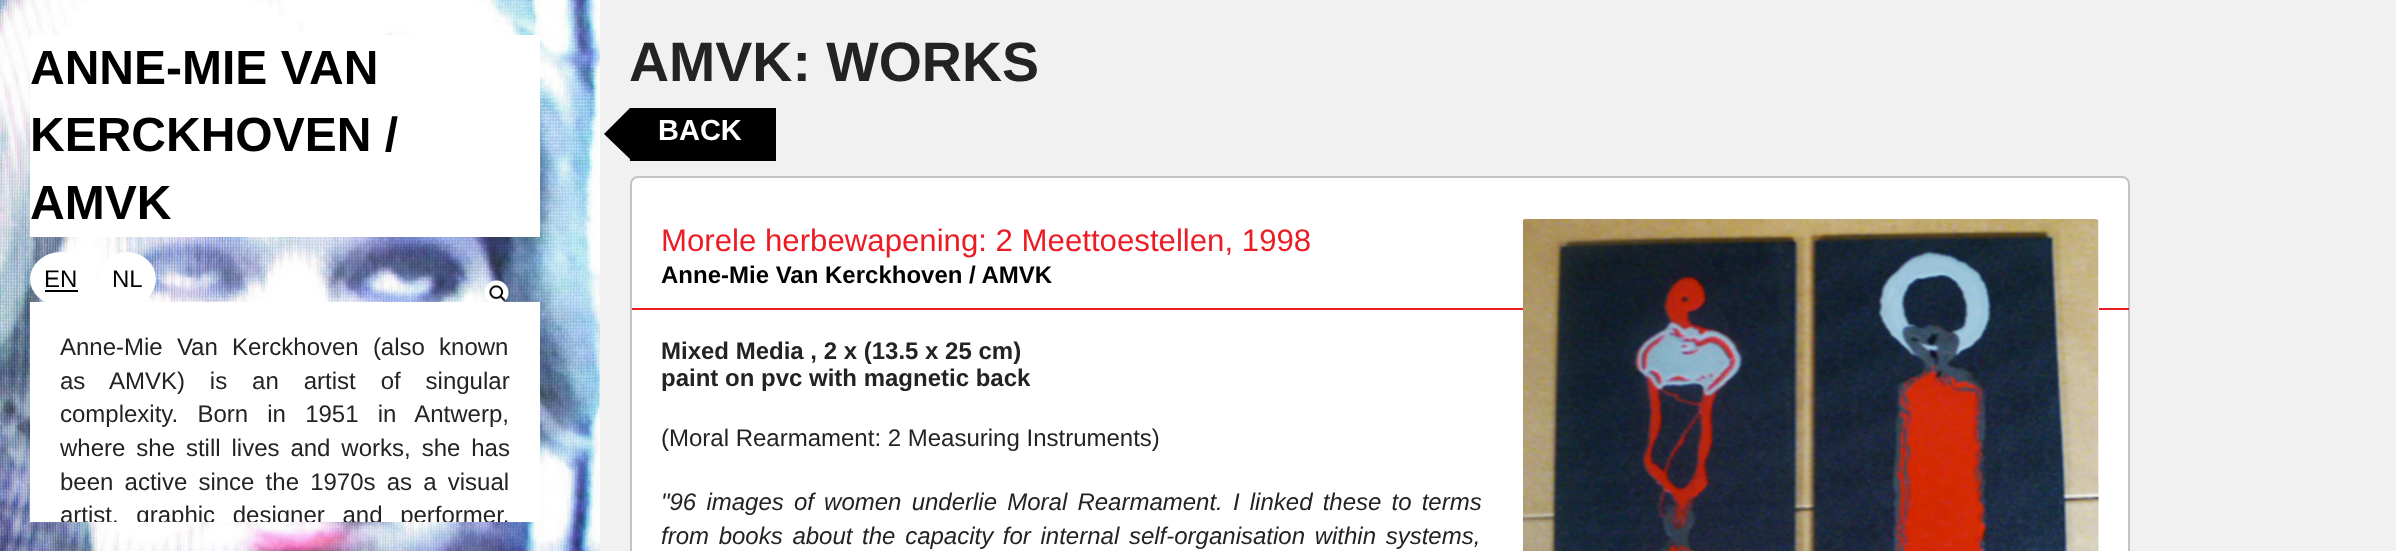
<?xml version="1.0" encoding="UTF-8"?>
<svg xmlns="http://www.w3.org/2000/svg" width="2396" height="551">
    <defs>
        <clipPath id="clip1"><rect x="30" y="302" width="510" height="220"/></clipPath>
    </defs>
    <rect width="100%" height="100%" fill="#FFFFFF"/>
    <image x="0" y="0" width="600" height="551" href="img_01.png"/>
    <rect x="30" y="35" width="510" height="202" fill="#FFFFFF"/>
    <text font-family="Liberation Sans" font-size="48" font-weight="700" fill="#000000">
        <tspan x="30" y="84">ANNE-MIE VAN</tspan>
        <tspan x="30" y="151">KERCKHOVEN /</tspan>
        <tspan x="30" y="219">AMVK</tspan>
    </text>
    <ellipse cx="61" cy="279" rx="31" ry="27" fill="#FFFFFF"/>
    <text x="44" y="287" font-family="Liberation Sans" font-size="24" fill="#000000">EN</text>
    <rect x="45" y="290" width="33" height="2" fill="#000000"/>
    <ellipse cx="127" cy="279" rx="29" ry="27" fill="#FFFFFF"/>
    <text x="112" y="287" font-family="Liberation Sans" font-size="24" fill="#000000">NL</text>
    <image x="484" y="280" width="25" height="22" href="img_02.png"/>
    <rect x="30" y="302" width="510" height="220" fill="#FFFFFF"/>
    <text font-family="Liberation Sans" font-size="24" fill="#232323">
        <tspan x="60" y="355" word-spacing="7.5">Anne-Mie Van Kerckhoven (also known</tspan>
        <tspan x="60" y="389" word-spacing="18.25">as AMVK) is an artist of singular</tspan>
        <tspan x="60" y="422" word-spacing="12.5">complexity. Born in 1951 in Antwerp,</tspan>
        <tspan x="60" y="456" word-spacing="4.25">where she still lives and works, she has</tspan>
        <tspan x="60" y="490" word-spacing="4.5">been active since the 1970s as a visual</tspan>
    </text>
    <g clip-path="url(#clip1)">
        <text x="60" y="523" word-spacing="11" font-family="Liberation Sans" font-size="24" fill="#232323">artist, graphic designer and performer.</text>
    </g>
    <rect x="600" y="0" width="1796" height="551" fill="#F1F1F1"/>
    <text x="629" y="81" font-family="Liberation Sans" font-size="55.5" font-weight="700" fill="#232323">AMVK: WORKS</text>
    <rect x="630" y="108" width="146" height="53" fill="#000000"/>
    <path d="M 630 108 V 159 L 604 134 Z" fill="#000000"/>
    <text x="658" y="140" font-family="Liberation Sans" font-size="29" font-weight="700" fill="#FFFFFF">BACK</text>
    <path d="M 638 177 H 2122 C 2126 177 2128 180 2128 183 V 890 C 2128 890 2126 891 2122 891 H 638 C 634 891 632 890 632 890 V 183 C 632 180 634 177 638 177 Z" fill="#FFFFFF"/>
    <rect x="631" y="177" width="1498" height="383" rx="7" fill="none" stroke="#C3C3C3" stroke-width="2"/>
    <rect x="632" y="308" width="1497" height="2" fill="#EC1C24"/>
    <text x="661" y="251" font-family="Liberation Sans" font-size="31.2" fill="#EC1C24">Morele herbewapening: 2 Meettoestellen, 1998</text>
    <text x="661" y="283" font-family="Liberation Sans" font-size="24" font-weight="700" fill="#000000">Anne-Mie Van Kerckhoven / AMVK</text>
    <text font-family="Liberation Sans" font-size="24" font-weight="700" fill="#232323">
        <tspan x="661" y="359">Mixed Media , 2 x (13.5 x 25 cm)</tspan>
        <tspan x="661" y="386">paint on pvc with magnetic back</tspan>
    </text>
    <path d="M 1526 219 H 2096 C 2097.5 219 2099 220.5 2099 222 V 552 H 1523 V 222 C 1523 220.5 1524.5 219 1526 219 Z" fill="#FDFDFD"/>
    <image x="1523" y="219" width="576" height="332" href="img_03.png"/>
    <text x="661" y="446" font-family="Liberation Sans" font-size="24" fill="#232323">(Moral Rearmament: 2 Measuring Instruments)</text>
    <text font-family="Liberation Sans" font-size="24" font-style="italic" fill="#232323">
        <tspan x="661" y="510" word-spacing="3.5">"96 images of women underlie Moral Rearmament. I linked these to terms</tspan>
        <tspan x="661" y="544" word-spacing="3">from books about the capacity for internal self-organisation within systems,</tspan>
    </text>
</svg>
